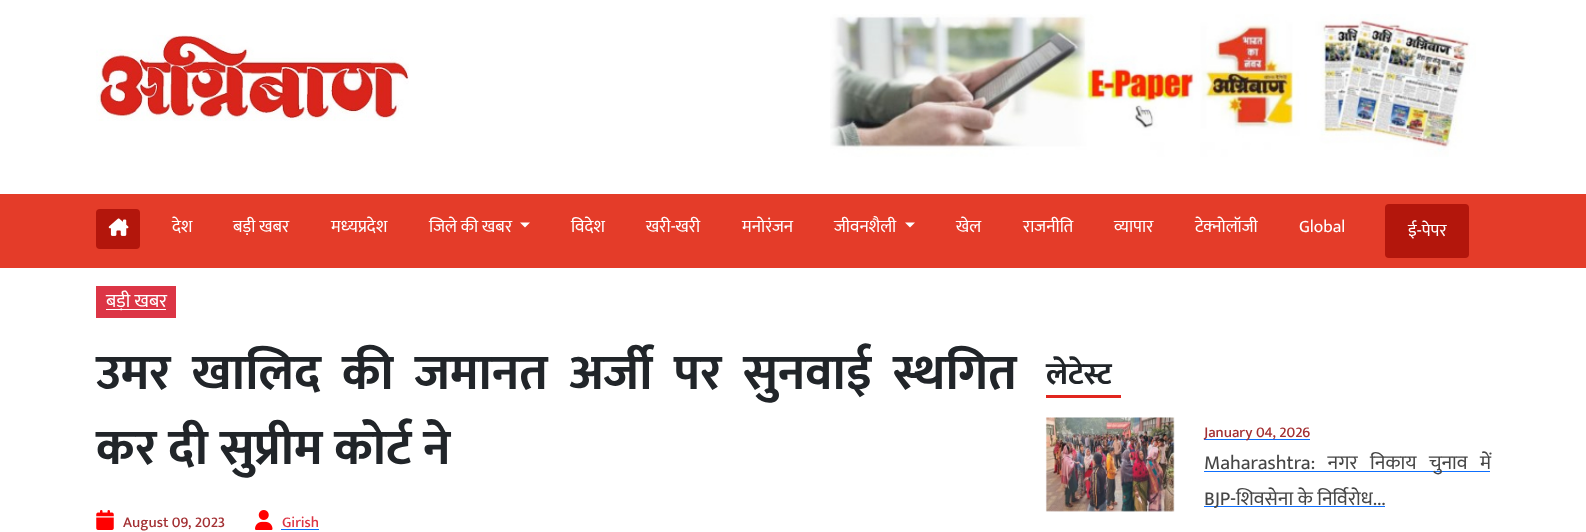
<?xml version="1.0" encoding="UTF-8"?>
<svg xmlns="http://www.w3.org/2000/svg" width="1586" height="532">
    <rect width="100%" height="100%" fill="#FFFFFF"/>
    <image x="96" y="35" width="313" height="86" href="img_01.png"/>
    <image x="830" y="14" width="646" height="143" href="img_02.png"/>
    <rect x="0" y="194" width="1586" height="74" fill="#E43C29"/>
    <rect x="96" y="209" width="44" height="40" rx="4" fill="#B3160C"/>
    <image x="108" y="218" width="21" height="18" href="img_03.png"/>
    <text x="172" y="232" font-family="Mukta" font-size="17.5" fill="#FFFFFF">देश</text>
    <text x="233" y="232" font-family="Mukta" font-size="17.5" fill="#FFFFFF">बड़ी खबर</text>
    <text x="331" y="232" font-family="Mukta" font-size="17.5" fill="#FFFFFF">मध्‍यप्रदेश</text>
    <text x="429" y="232" font-family="Mukta" font-size="17.5" fill="#FFFFFF">जिले की खबर</text>
    <path d="M 520 222.5 H 530 L 525 227.5 Z" fill="#FFFFFF"/>
    <text x="571" y="232" font-family="Mukta" font-size="17.5" fill="#FFFFFF">विदेश</text>
    <text x="646" y="232" font-family="Mukta" font-size="17.5" fill="#FFFFFF">खरी-खरी</text>
    <text x="742" y="232" font-family="Mukta" font-size="17.5" fill="#FFFFFF">मनोरंजन</text>
    <text x="834" y="232" font-family="Mukta" font-size="17.5" fill="#FFFFFF">जीवनशैली</text>
    <path d="M 905 222.5 H 915 L 910 227.5 Z" fill="#FFFFFF"/>
    <text x="956" y="232" font-family="Mukta" font-size="17.5" fill="#FFFFFF">खेल</text>
    <text x="1023" y="232" font-family="Mukta" font-size="17.5" fill="#FFFFFF">राजनीति</text>
    <text x="1114" y="232" font-family="Mukta" font-size="17.5" fill="#FFFFFF">व्‍यापार</text>
    <text x="1195" y="232" font-family="Mukta" font-size="17.5" fill="#FFFFFF">टेक्‍नोलॉजी</text>
    <text x="1299" y="232" font-family="Mukta" font-size="17.5" fill="#FFFFFF">Global</text>
    <rect x="1385" y="204" width="84" height="54" rx="4" fill="#B3160C"/>
    <text x="1408" y="236" font-family="Mukta" font-size="17.5" fill="#FFFFFF">ई-पेपर</text>
    <rect x="96" y="286" width="80" height="32" fill="#DC3545"/>
    <rect x="106" y="309" width="60" height="1" fill="#FFFFFF"/>
    <text x="106" y="307" font-family="Mukta" font-size="19" fill="#FFFFFF">बड़ी खबर</text>
    <text font-family="Mukta" font-size="50" font-weight="700" fill="#212529">
        <tspan x="96" y="389" word-spacing="10">उमर खालिद की जमानत अर्जी पर सुनवाई स्थगित</tspan>
        <tspan x="96" y="464">कर दी सुप्रीम कोर्ट ने</tspan>
    </text>
    <image x="96" y="510" width="18" height="20" href="img_04.png"/>
    <text x="123" y="527" font-family="Mukta" font-size="15" font-weight="500" fill="#A33033">August 09, 2023</text>
    <image x="255" y="510" width="18" height="20" href="img_05.png"/>
    <text x="282" y="527" font-family="Mukta" font-size="15" font-weight="500" fill="#DC3545">Girish</text>
    <rect x="281" y="529" width="38" height="1" fill="#0D6EFD"/>
    <text x="1046" y="384" font-family="Mukta" font-size="31" font-weight="700" fill="#212529">लेटेस्ट</text>
    <rect x="1046" y="395" width="75" height="3" fill="#E1261E"/>
    <image x="1045" y="417" width="130" height="95" href="img_06.png"/>
    <rect x="1204" y="439" width="106" height="1" fill="#0D6EFD"/>
    <text x="1204" y="437" font-family="Mukta" font-size="15" font-weight="500" fill="#A33033">January 04, 2026</text>
    <rect x="1204" y="471" width="286" height="1" fill="#0D6EFD"/>
    <text x="1204" y="469" word-spacing="8" font-family="Mukta" font-size="20" fill="#464646">Maharashtra: नगर निकाय चुनाव में</text>
    <rect x="1204" y="506" width="181" height="1" fill="#0D6EFD"/>
    <text x="1204" y="505" font-family="Mukta" font-size="20" fill="#464646">BJP-शिवसेना के निर्विरोध...</text>
</svg>
